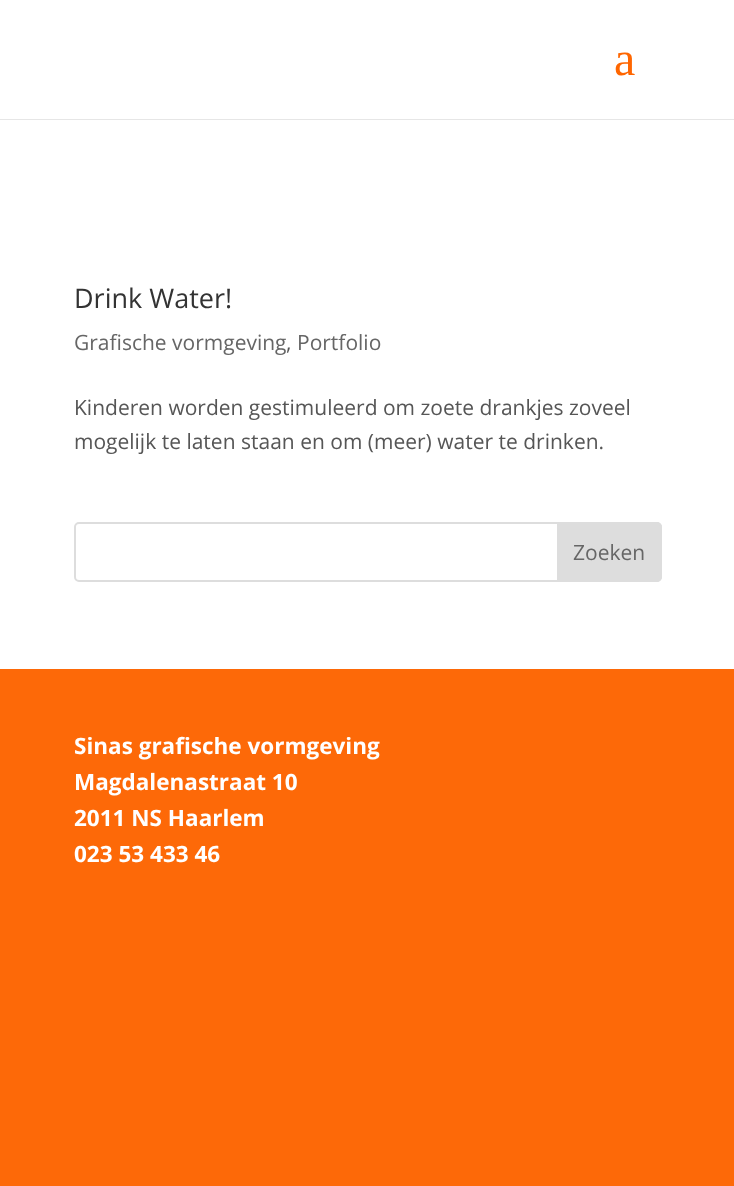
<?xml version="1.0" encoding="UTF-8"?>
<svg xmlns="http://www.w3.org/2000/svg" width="734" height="1186">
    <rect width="100%" height="100%" fill="#FFFFFF"/>
    <rect x="0" y="119" width="734" height="1" fill="#E6E6E6"/>
    <text x="614" y="75" font-family="Liberation Serif" font-size="48" fill="#FF6600">a</text>
    <text x="74" y="308" font-family="Open Sans" font-size="27" fill="#333333">Drink Water!</text>
    <text x="74" y="350" font-family="Open Sans" font-size="21" fill="#666666">Grafische vormgeving</text>
    <text x="286" y="350" font-family="Open Sans" font-size="21" fill="#565656">,</text>
    <text x="297" y="350" font-family="Open Sans" font-size="21" fill="#666666">Portfolio</text>
    <text font-family="Open Sans" font-size="21" fill="#565656">
        <tspan x="74" y="415">Kinderen worden gestimuleerd om zoete drankjes zoveel</tspan>
        <tspan x="74" y="449">mogelijk te laten staan en om (meer) water te drinken.</tspan>
    </text>
    <rect x="75" y="523" width="586" height="58" rx="4" fill="none" stroke="#DDDDDD" stroke-width="2"/>
    <path d="M 558 523 H 657 C 659 523 661 525 661 527 V 577 C 661 579 659 581 657 581 H 558 Z" fill="#DDDDDD" stroke="#DDDDDD" stroke-width="2"/>
    <text x="573" y="560" font-family="Open Sans" font-size="21" fill="#666666">Zoeken</text>
    <rect x="0" y="669" width="734" height="517" fill="#FD6908"/>
    <text font-family="Open Sans" font-size="22.5" font-weight="700" fill="#FFFFFF">
        <tspan x="74" y="754">Sinas grafische vormgeving</tspan>
        <tspan x="74" y="790">Magdalenastraat 10</tspan>
        <tspan x="74" y="826">2011 NS Haarlem</tspan>
        <tspan x="74" y="862">023 53 433 46</tspan>
    </text>
</svg>
